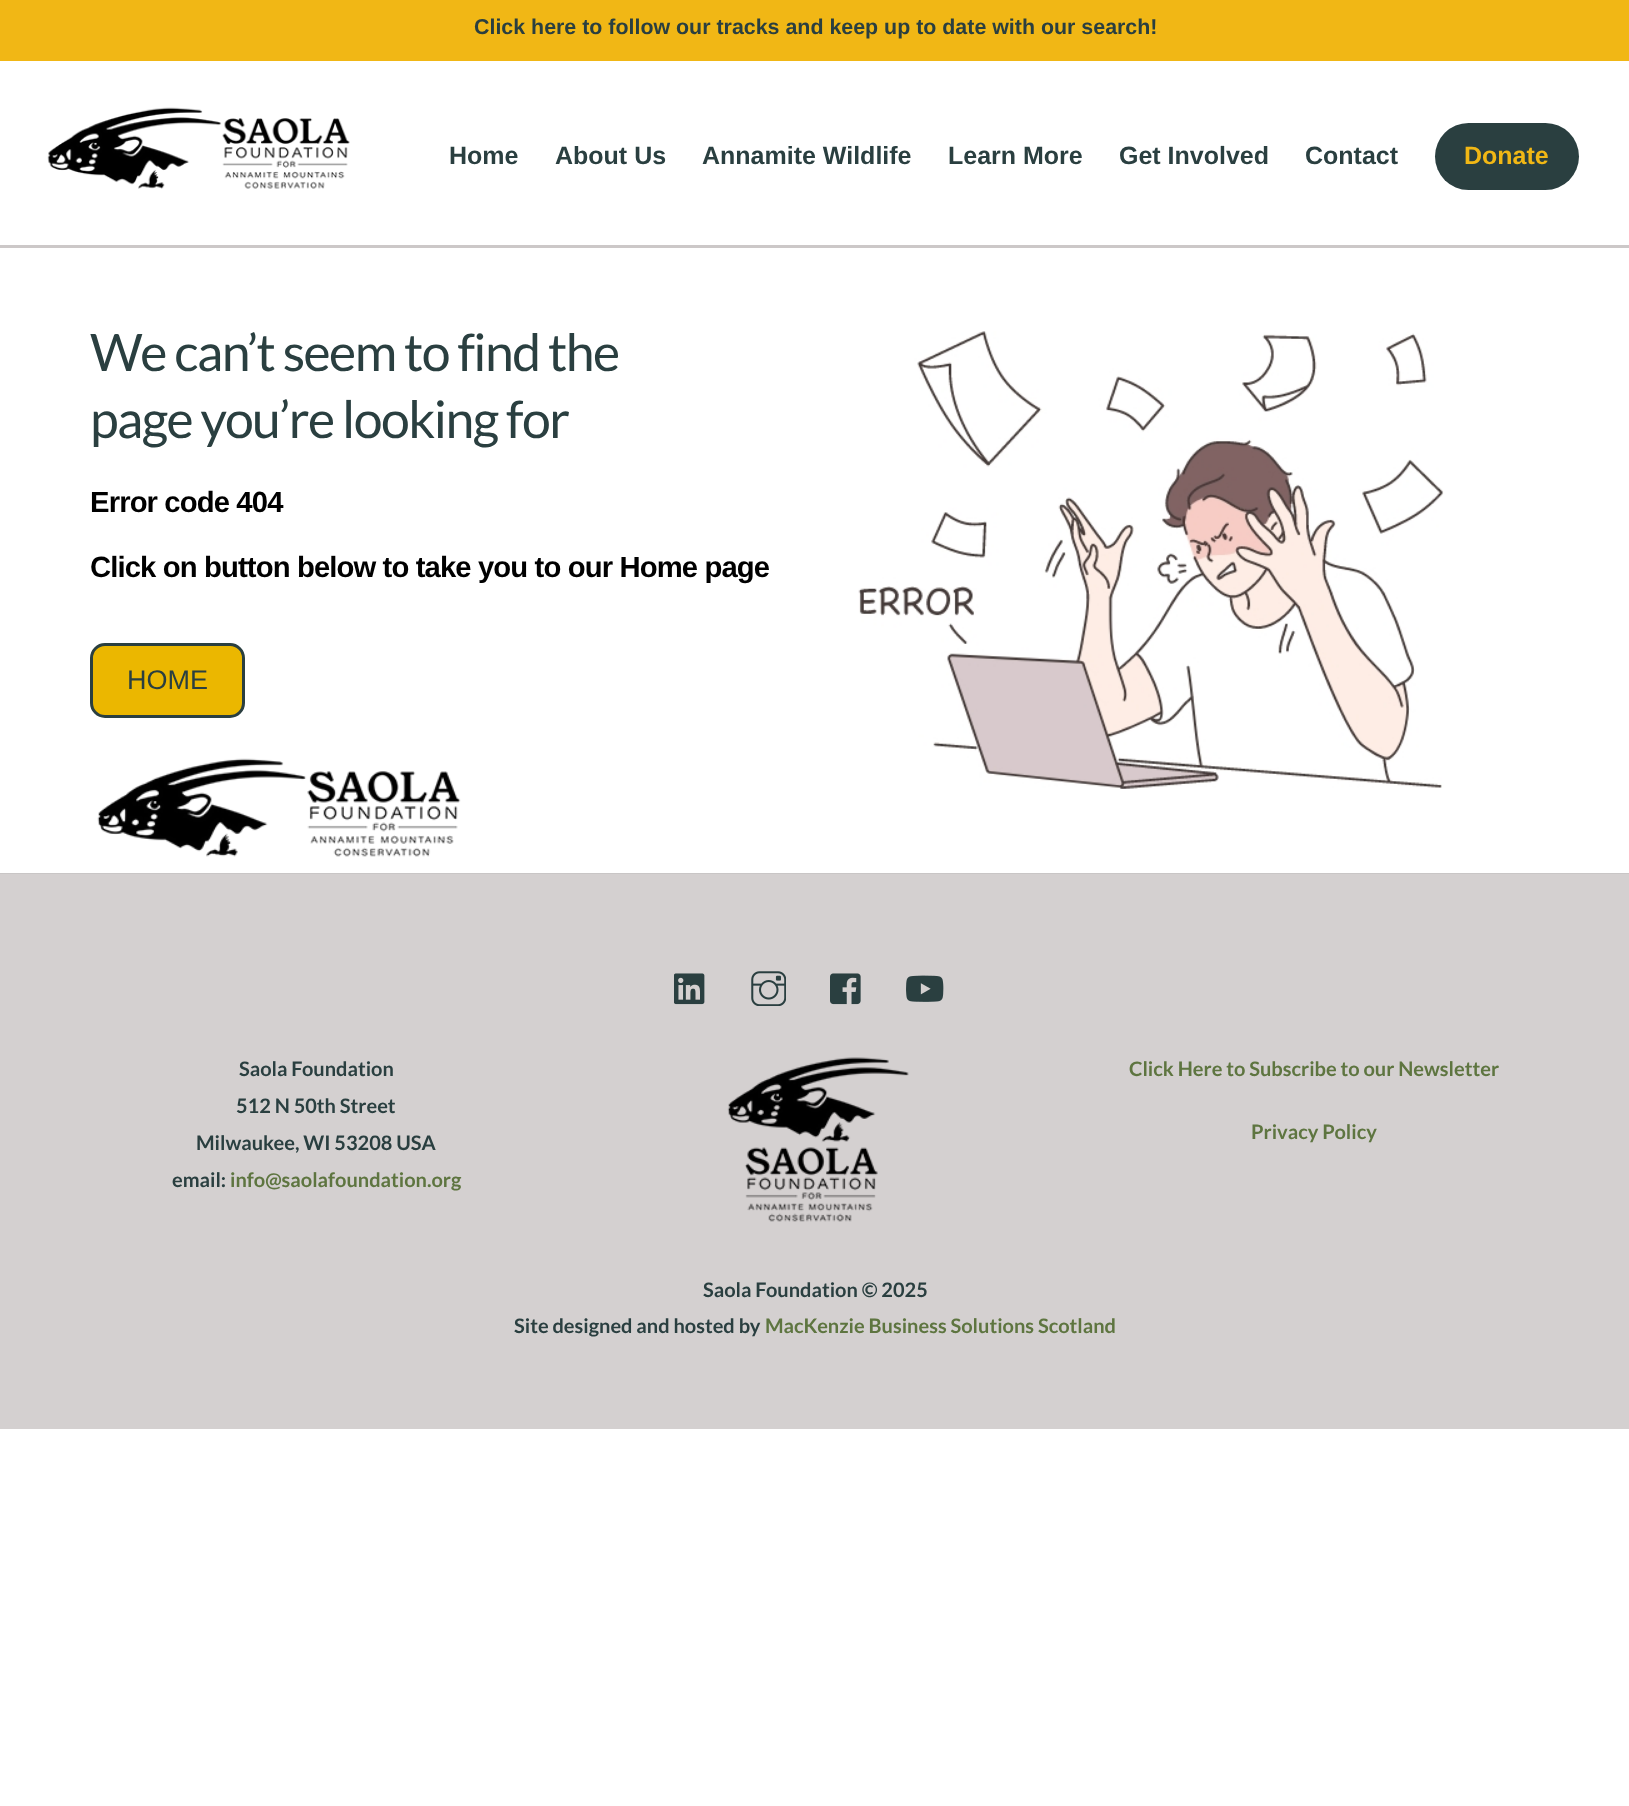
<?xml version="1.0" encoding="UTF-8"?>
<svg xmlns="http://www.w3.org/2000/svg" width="1629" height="1806">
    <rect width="100%" height="100%" fill="#FFFFFF"/>
    <rect x="0" y="245" width="1629" height="3" fill="#CCC8C8"/>
    <rect x="0" y="0" width="1629" height="61" fill="#F1B715"/>
    <text x="474" y="34" font-family="Liberation Sans" font-size="21.4" font-weight="700" fill="#2A3F40">Click here to follow our tracks and keep up to date with our search!</text>
    <image x="47" y="107" width="303" height="82" href="img_01.png"/>
    <text x="449" y="164" font-family="Liberation Sans" font-size="25" font-weight="700" fill="#2A3F40">Home</text>
    <text x="555" y="164" font-family="Liberation Sans" font-size="25" font-weight="700" fill="#2A3F40">About Us</text>
    <text x="702" y="164" font-family="Liberation Sans" font-size="25" font-weight="700" fill="#2A3F40">Annamite Wildlife</text>
    <text x="948" y="164" font-family="Liberation Sans" font-size="25" font-weight="700" fill="#2A3F40">Learn More</text>
    <text x="1119" y="164" font-family="Liberation Sans" font-size="25" font-weight="700" fill="#2A3F40">Get Involved</text>
    <text x="1305" y="164" font-family="Liberation Sans" font-size="25" font-weight="700" fill="#2A3F40">Contact</text>
    <rect x="1435" y="123" width="144" height="67" rx="33.5" fill="#2A3F40"/>
    <text x="1464" y="164" font-family="Liberation Sans" font-size="25" font-weight="700" fill="#F1B715">Donate</text>
    <text font-family="Lato" font-size="51.75" letter-spacing="-1.55" fill="#2A3F40">
        <tspan x="90" y="371">We can’t seem to find the</tspan>
        <tspan x="90" y="438">page you’re looking for</tspan>
    </text>
    <text x="90" y="512" font-family="Liberation Sans" font-size="29.25" font-weight="700" letter-spacing="-0.88" fill="#000000">Error code 404</text>
    <text x="90" y="577" font-family="Liberation Sans" font-size="29.25" font-weight="700" letter-spacing="-0.88" fill="#000000">Click on button below to take you to our Home page</text>
    <rect x="91.5" y="644.5" width="152" height="72" rx="13.5" fill="#EBB700" stroke="#2A3F40" stroke-width="3"/>
    <text x="127" y="689" font-family="Liberation Sans" font-size="27" fill="#2A3F40">HOME</text>
    <image x="97" y="758" width="364" height="99" href="img_02.png"/>
    <image x="858" y="331" width="586" height="458" href="img_03.png"/>
    <rect x="0" y="874" width="1629" height="555" fill="#D4D0D0"/>
    <rect x="0" y="873" width="1629" height="1" fill="#C9C6C6"/>
    <image x="674" y="973" width="31" height="32" href="img_04.png"/>
    <image x="751" y="971" width="35" height="35" href="img_05.png"/>
    <image x="830" y="973" width="31" height="32" href="img_06.png"/>
    <image x="906" y="975" width="38" height="27" href="img_07.png"/>
    <text x="239" y="1076" font-family="Lato" font-size="20" font-weight="700" fill="#2A3F40">Saola Foundation</text>
    <text x="236" y="1113" font-family="Lato" font-size="20" font-weight="700" fill="#2A3F40">512 N 50th Street</text>
    <text x="196" y="1150" font-family="Lato" font-size="20" font-weight="700" fill="#2A3F40">Milwaukee, WI 53208 USA</text>
    <text x="172" y="1187" font-family="Lato" font-size="20" font-weight="700" fill="#2A3F40">email:</text>
    <text x="230" y="1187" font-family="Lato" font-size="20" font-weight="700" fill="#5E7540">info@saolafoundation.org</text>
    <image x="727" y="1057" width="182" height="165" href="img_08.png"/>
    <text x="1129" y="1076" font-family="Lato" font-size="20" font-weight="700" fill="#5E7540">Click Here to Subscribe to our Newsletter</text>
    <text x="1251" y="1139" font-family="Lato" font-size="20" font-weight="700" fill="#5E7540">Privacy Policy</text>
    <text x="703" y="1297" font-family="Lato" font-size="20" font-weight="700" fill="#2A3F40">Saola Foundation © 2025</text>
    <text x="514" y="1333" font-family="Lato" font-size="20" font-weight="700" fill="#2A3F40">Site designed and hosted by</text>
    <text x="765" y="1333" font-family="Lato" font-size="20" font-weight="700" fill="#5E7540">MacKenzie Business Solutions Scotland</text>
</svg>
